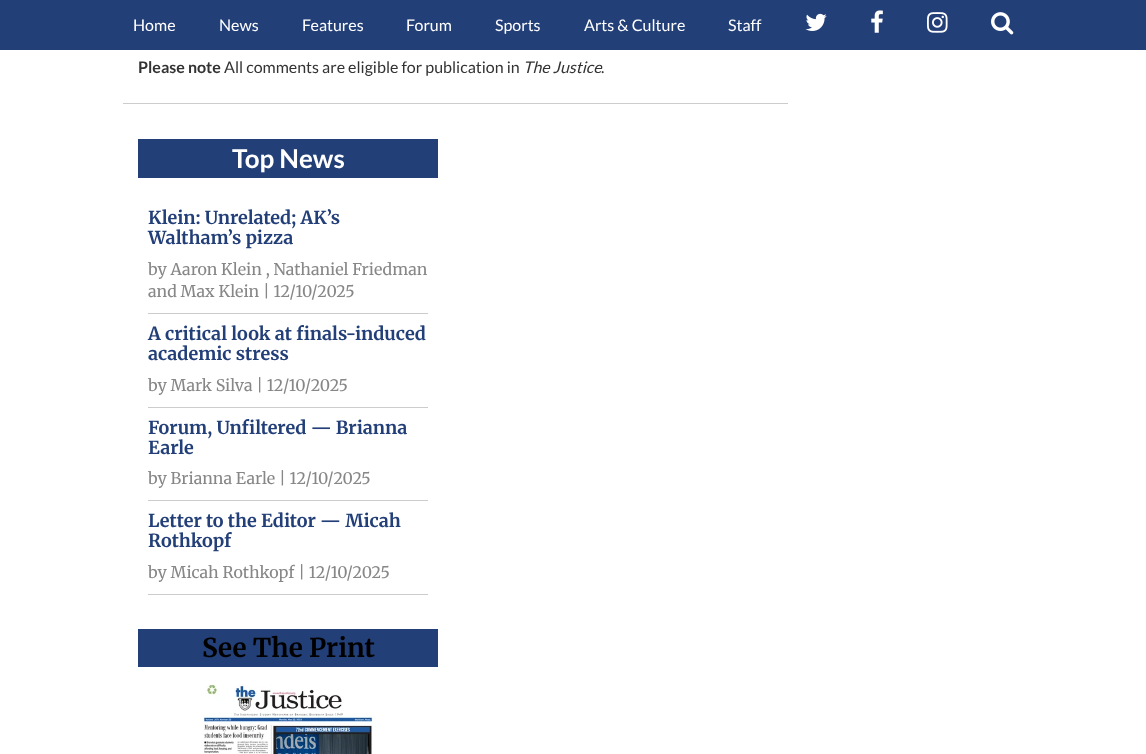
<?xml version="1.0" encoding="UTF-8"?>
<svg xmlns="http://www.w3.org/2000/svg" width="1146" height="754">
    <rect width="100%" height="100%" fill="#FFFFFF"/>
    <rect x="0" y="0" width="1146" height="50" fill="#233F78"/>
    <text x="133" y="31" font-family="Lato" font-size="16" fill="#FFFFFF">Home</text>
    <text x="219" y="31" font-family="Lato" font-size="16" fill="#FFFFFF">News</text>
    <text x="302" y="31" font-family="Lato" font-size="16" fill="#FFFFFF">Features</text>
    <text x="406" y="31" font-family="Lato" font-size="16" fill="#FFFFFF">Forum</text>
    <text x="495" y="31" font-family="Lato" font-size="16" fill="#FFFFFF">Sports</text>
    <text x="584" y="31" font-family="Lato" font-size="16" fill="#FFFFFF">Arts &amp; Culture</text>
    <text x="728" y="31" font-family="Lato" font-size="16" fill="#FFFFFF">Staff</text>
    <image x="805" y="13" width="22" height="18" href="img_01.png"/>
    <image x="871" y="10" width="12" height="23" href="img_02.png"/>
    <image x="927" y="12" width="21" height="21" href="img_03.png"/>
    <image x="991" y="12" width="23" height="23" href="img_04.png"/>
    <text x="138" y="73" font-family="Lato" font-size="16" font-weight="700" fill="#333333">Please note</text>
    <text x="224" y="73" font-family="Lato" font-size="16" fill="#333333">All comments are eligible for publication in</text>
    <text x="523" y="73" font-family="Lato" font-size="16" font-style="italic" fill="#333333">The Justice</text>
    <text x="601" y="73" font-family="Lato" font-size="16" fill="#333333">.</text>
    <rect x="123" y="103" width="665" height="1" fill="#CCCCCC"/>
    <rect x="138" y="139" width="300" height="39" fill="#233F78"/>
    <text x="232" y="168" font-family="Lato" font-size="26" font-weight="700" fill="#FFFFFF">Top News</text>
    <text font-family="Merriweather" font-size="18" font-weight="700" fill="#233F78">
        <tspan x="148" y="224">Klein: Unrelated; AK’s</tspan>
        <tspan x="148" y="244">Waltham’s pizza</tspan>
    </text>
    <text font-family="Merriweather" font-size="16" fill="#878787">
        <tspan x="148" y="275">by Aaron Klein , Nathaniel Friedman</tspan>
        <tspan x="148" y="297">and Max Klein | 12/10/2025</tspan>
    </text>
    <rect x="148" y="313" width="280" height="1" fill="#CCCCCC"/>
    <text font-family="Merriweather" font-size="18" font-weight="700" fill="#233F78">
        <tspan x="148" y="340">A critical look at finals-induced</tspan>
        <tspan x="148" y="360">academic stress</tspan>
    </text>
    <text x="148" y="391" font-family="Merriweather" font-size="16" fill="#878787">by Mark Silva | 12/10/2025</text>
    <rect x="148" y="407" width="280" height="1" fill="#CCCCCC"/>
    <text font-family="Merriweather" font-size="18" font-weight="700" fill="#233F78">
        <tspan x="148" y="434">Forum, Unfiltered — Brianna</tspan>
        <tspan x="148" y="454">Earle</tspan>
    </text>
    <text x="148" y="484" font-family="Merriweather" font-size="16" fill="#878787">by Brianna Earle | 12/10/2025</text>
    <rect x="148" y="500" width="280" height="1" fill="#CCCCCC"/>
    <text font-family="Merriweather" font-size="18" font-weight="700" fill="#233F78">
        <tspan x="148" y="527">Letter to the Editor — Micah</tspan>
        <tspan x="148" y="547">Rothkopf</tspan>
    </text>
    <text x="148" y="578" font-family="Merriweather" font-size="16" fill="#878787">by Micah Rothkopf | 12/10/2025</text>
    <rect x="148" y="594" width="280" height="1" fill="#CCCCCC"/>
    <rect x="138" y="629" width="300" height="38" fill="#233F78"/>
    <text x="202" y="657" font-family="Merriweather" font-size="26" font-weight="700" fill="#000000">See The Print</text>
    <image x="203" y="684" width="173" height="70" href="img_05.png"/>
</svg>
